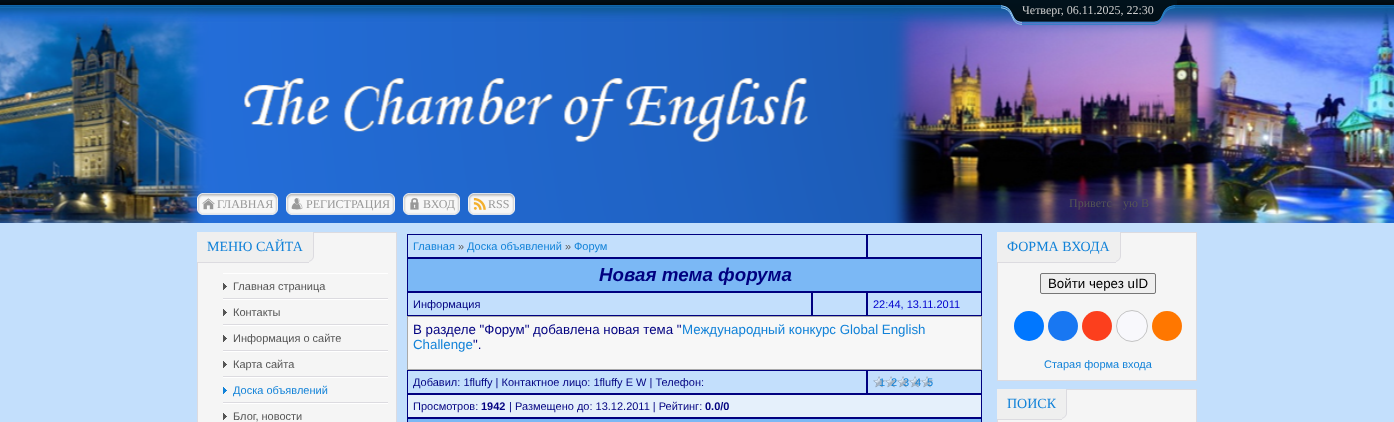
<?xml version="1.0" encoding="UTF-8"?>
<svg xmlns="http://www.w3.org/2000/svg" width="1394" height="422">
    <rect width="100%" height="100%" fill="#C3DFFC"/>
    <image x="0" y="0" width="1394" height="22" href="img_01.png"/>
    <image x="0" y="4" width="1394" height="219" href="img_02.png"/>
    <image x="1000" y="0" width="22" height="25" href="img_03.png"/>
    <image x="1022" y="0" width="132" height="25" href="img_04.png"/>
    <text x="1022" y="14" font-family="Liberation Serif" font-size="12" fill="#CCCCCC">Четверг, 06.11.2025, 22:30</text>
    <image x="1154" y="0" width="23" height="25" href="img_05.png"/>
    <image x="197" y="193" width="5" height="22" href="img_06.png"/>
    <image x="202" y="193" width="71" height="22" href="img_07.png"/>
    <image x="202" y="198" width="13" height="12" href="img_08.png"/>
    <text x="217" y="208" font-family="Liberation Serif" font-size="12" fill="#999999">ГЛАВНАЯ</text>
    <image x="273" y="193" width="5" height="22" href="img_09.png"/>
    <image x="286" y="193" width="5" height="22" href="img_10.png"/>
    <image x="291" y="193" width="99" height="22" href="img_11.png"/>
    <image x="291" y="198" width="12" height="12" href="img_12.png"/>
    <text x="306" y="208" font-family="Liberation Serif" font-size="12" fill="#999999">РЕГИСТРАЦИЯ</text>
    <image x="390" y="193" width="5" height="22" href="img_13.png"/>
    <image x="403" y="193" width="5" height="22" href="img_14.png"/>
    <image x="408" y="193" width="47" height="22" href="img_15.png"/>
    <image x="410" y="198" width="9" height="12" href="img_16.png"/>
    <text x="423" y="208" font-family="Liberation Serif" font-size="12" fill="#999999">ВХОД</text>
    <image x="455" y="193" width="5" height="22" href="img_17.png"/>
    <image x="468" y="193" width="5" height="22" href="img_18.png"/>
    <image x="473" y="193" width="37" height="22" href="img_19.png"/>
    <image x="473" y="197" width="13" height="13" href="img_20.png"/>
    <text x="488" y="208" font-family="Liberation Serif" font-size="12" fill="#999999">RSS</text>
    <image x="510" y="193" width="5" height="22" href="img_21.png"/>
    <text x="1069" y="207" font-family="Liberation Serif" font-size="12" fill="#555555">Приветс</text>
    <text x="1123" y="207" font-family="Liberation Serif" font-size="12" fill="#555555">ую В</text>
    <rect x="198" y="233" width="198" height="189" fill="#F5F5F5"/>
    <rect x="314" y="232" width="83" height="1" fill="#DCDBE0"/>
    <rect x="396" y="232" width="1" height="190" fill="#DCDBE0"/>
    <rect x="197" y="232" width="112" height="30" fill="#EFEFEF"/>
    <rect x="197" y="262" width="112" height="1" fill="#DCDBE0"/>
    <text x="207" y="251" font-family="Liberation Serif" font-size="14" fill="#1282D8">МЕНЮ САЙТА</text>
    <image x="309" y="232" width="5" height="30" href="img_22.png"/>
    <rect x="197" y="263" width="1" height="159" fill="#DCDBE0"/>
    <rect x="223" y="273" width="165" height="1" fill="#FFFFFF"/>
    <rect x="223" y="298" width="165" height="1" fill="#DCDBE0"/>
    <image x="223" y="283" width="4" height="7" href="img_23.png"/>
    <text x="233" y="290" font-family="Liberation Sans" font-size="11" fill="#555555">Главная страница</text>
    <rect x="223" y="299" width="165" height="1" fill="#FFFFFF"/>
    <rect x="223" y="324" width="165" height="1" fill="#DCDBE0"/>
    <image x="223" y="309" width="4" height="7" href="img_23.png"/>
    <text x="233" y="316" font-family="Liberation Sans" font-size="11" fill="#555555">Контакты</text>
    <rect x="223" y="325" width="165" height="1" fill="#FFFFFF"/>
    <rect x="223" y="350" width="165" height="1" fill="#DCDBE0"/>
    <image x="223" y="335" width="4" height="7" href="img_23.png"/>
    <text x="233" y="342" font-family="Liberation Sans" font-size="11" fill="#555555">Информация о сайте</text>
    <rect x="223" y="351" width="165" height="1" fill="#FFFFFF"/>
    <rect x="223" y="376" width="165" height="1" fill="#DCDBE0"/>
    <image x="223" y="361" width="4" height="7" href="img_23.png"/>
    <text x="233" y="368" font-family="Liberation Sans" font-size="11" fill="#555555">Карта сайта</text>
    <rect x="223" y="377" width="165" height="1" fill="#FFFFFF"/>
    <rect x="223" y="402" width="165" height="1" fill="#DCDBE0"/>
    <image x="223" y="387" width="4" height="7" href="img_24.png"/>
    <text x="233" y="394" font-family="Liberation Sans" font-size="11" fill="#1282D8">Доска объявлений</text>
    <rect x="223" y="403" width="165" height="1" fill="#FFFFFF"/>
    <image x="223" y="413" width="4" height="7" href="img_23.png"/>
    <text x="233" y="420" font-family="Liberation Sans" font-size="11" fill="#555555">Блог, новости</text>
    <rect x="407.5" y="234.5" width="459" height="23" fill="none" stroke="#000080"/>
    <text x="413" y="250" font-family="Liberation Sans" font-size="11" fill="#1282D8">Главная</text>
    <text x="458" y="250" font-family="Liberation Sans" font-size="11" fill="#5D5D5D">»</text>
    <text x="467" y="250" font-family="Liberation Sans" font-size="11" fill="#1282D8">Доска объявлений</text>
    <text x="565" y="250" font-family="Liberation Sans" font-size="11" fill="#5D5D5D">»</text>
    <text x="574" y="250" font-family="Liberation Sans" font-size="11" fill="#1282D8">Форум</text>
    <rect x="867.5" y="234.5" width="114" height="23" fill="none" stroke="#000080"/>
    <rect x="407.5" y="258.5" width="574" height="33" fill="#7BB8F5" stroke="#000080"/>
    <text x="599" y="281" font-family="Liberation Sans" font-size="18.75" font-weight="700" font-style="italic" fill="#000080">Новая тема форума</text>
    <rect x="407.5" y="292.5" width="404" height="23" fill="none" stroke="#000080"/>
    <text x="413" y="308" font-family="Liberation Sans" font-size="11" fill="#000080">Информация</text>
    <rect x="812.5" y="292.5" width="54" height="23" fill="none" stroke="#000080"/>
    <rect x="867.5" y="292.5" width="114" height="23" fill="none" stroke="#000080"/>
    <text x="873" y="308" font-family="Liberation Sans" font-size="11" fill="#0000CD">22:44, 13.11.2011</text>
    <rect x="407.5" y="316.5" width="574" height="53" fill="#F7F7F7" stroke="#A9A9A9"/>
    <text x="413" y="334" font-family="Liberation Sans" font-size="13.3" fill="#000080">В разделе "Форум" добавлена новая тема "</text>
    <text x="682" y="334" font-family="Liberation Sans" font-size="13.3" fill="#1282D8">Международный конкурс Global English</text>
    <text x="413" y="349" font-family="Liberation Sans" font-size="13.3" fill="#1282D8">Challenge</text>
    <text x="473" y="349" font-family="Liberation Sans" font-size="13.3" fill="#000080">".</text>
    <rect x="407.5" y="370.5" width="459" height="23" fill="none" stroke="#000080"/>
    <text x="413" y="386" font-family="Liberation Sans" font-size="11" fill="#000080">Добавил: 1fluffy | Контактное лицо: 1fluffy E W | Телефон:</text>
    <rect x="867.5" y="370.5" width="114" height="23" fill="none" stroke="#000080"/>
    <image x="873" y="376" width="60" height="12" href="img_25.png"/>
    <text x="879" y="386" font-family="Liberation Sans" font-size="11" fill="#1282D8">1</text>
    <text x="891" y="386" font-family="Liberation Sans" font-size="11" fill="#1282D8">2</text>
    <text x="903" y="386" font-family="Liberation Sans" font-size="11" fill="#1282D8">3</text>
    <text x="915" y="386" font-family="Liberation Sans" font-size="11" fill="#1282D8">4</text>
    <text x="927" y="386" font-family="Liberation Sans" font-size="11" fill="#1282D8">5</text>
    <rect x="407.5" y="394.5" width="574" height="23" fill="#E5F0FB" stroke="#000080"/>
    <text x="413" y="410" font-family="Liberation Sans" font-size="11" fill="#000080">Просмотров:</text>
    <text x="481" y="410" font-family="Liberation Sans" font-size="11" font-weight="700" fill="#000080">1942</text>
    <text x="509" y="410" font-family="Liberation Sans" font-size="11" fill="#000080">| Размещено до: 13.12.2011 | Рейтинг:</text>
    <text x="705" y="410" font-family="Liberation Sans" font-size="11" font-weight="700" fill="#000080">0.0/0</text>
    <rect x="407.5" y="418.5" width="574" height="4" fill="#7BB8F5" stroke="#000080"/>
    <rect x="998" y="233" width="198" height="147" fill="#F5F5F5"/>
    <rect x="1121" y="232" width="76" height="1" fill="#DCDBE0"/>
    <rect x="1196" y="232" width="1" height="149" fill="#DCDBE0"/>
    <rect x="997" y="232" width="119" height="30" fill="#EFEFEF"/>
    <rect x="997" y="262" width="119" height="1" fill="#DCDBE0"/>
    <text x="1007" y="251" font-family="Liberation Serif" font-size="14" fill="#1282D8">ФОРМА ВХОДА</text>
    <image x="1116" y="232" width="5" height="30" href="img_22.png"/>
    <rect x="997" y="380" width="200" height="1" fill="#DCDBE0"/>
    <rect x="997" y="263" width="1" height="118" fill="#DCDBE0"/>
    <rect x="1040.5" y="273.5" width="115" height="20" rx="1.5" fill="#EFEFEF" stroke="#767676"/>
    <text x="1048" y="288" font-family="Liberation Sans" font-size="13.3" fill="#000000">Войти через uID</text>
    <circle cx="1029" cy="326" r="15" fill="#0077FF"/>
    <circle cx="1063" cy="326" r="15" fill="#1877F2"/>
    <circle cx="1097" cy="326" r="15" fill="#FC3F1D"/>
    <circle cx="1132" cy="326" r="15.5" fill="#F8F8FC" stroke="#C4C4C4"/>
    <circle cx="1167" cy="326" r="15" fill="#FF7700"/>
    <text x="1044" y="368" font-family="Liberation Sans" font-size="11" fill="#1282D8">Старая форма входа</text>
    <rect x="998" y="390" width="198" height="32" fill="#F5F5F5"/>
    <rect x="1067" y="389" width="130" height="1" fill="#DCDBE0"/>
    <rect x="1196" y="389" width="1" height="33" fill="#DCDBE0"/>
    <rect x="997" y="389" width="65" height="30" fill="#EFEFEF"/>
    <rect x="997" y="419" width="65" height="1" fill="#DCDBE0"/>
    <text x="1007" y="408" font-family="Liberation Serif" font-size="14" fill="#1282D8">ПОИСК</text>
    <image x="1062" y="389" width="5" height="30" href="img_22.png"/>
    <rect x="997" y="420" width="1" height="2" fill="#DCDBE0"/>
</svg>
